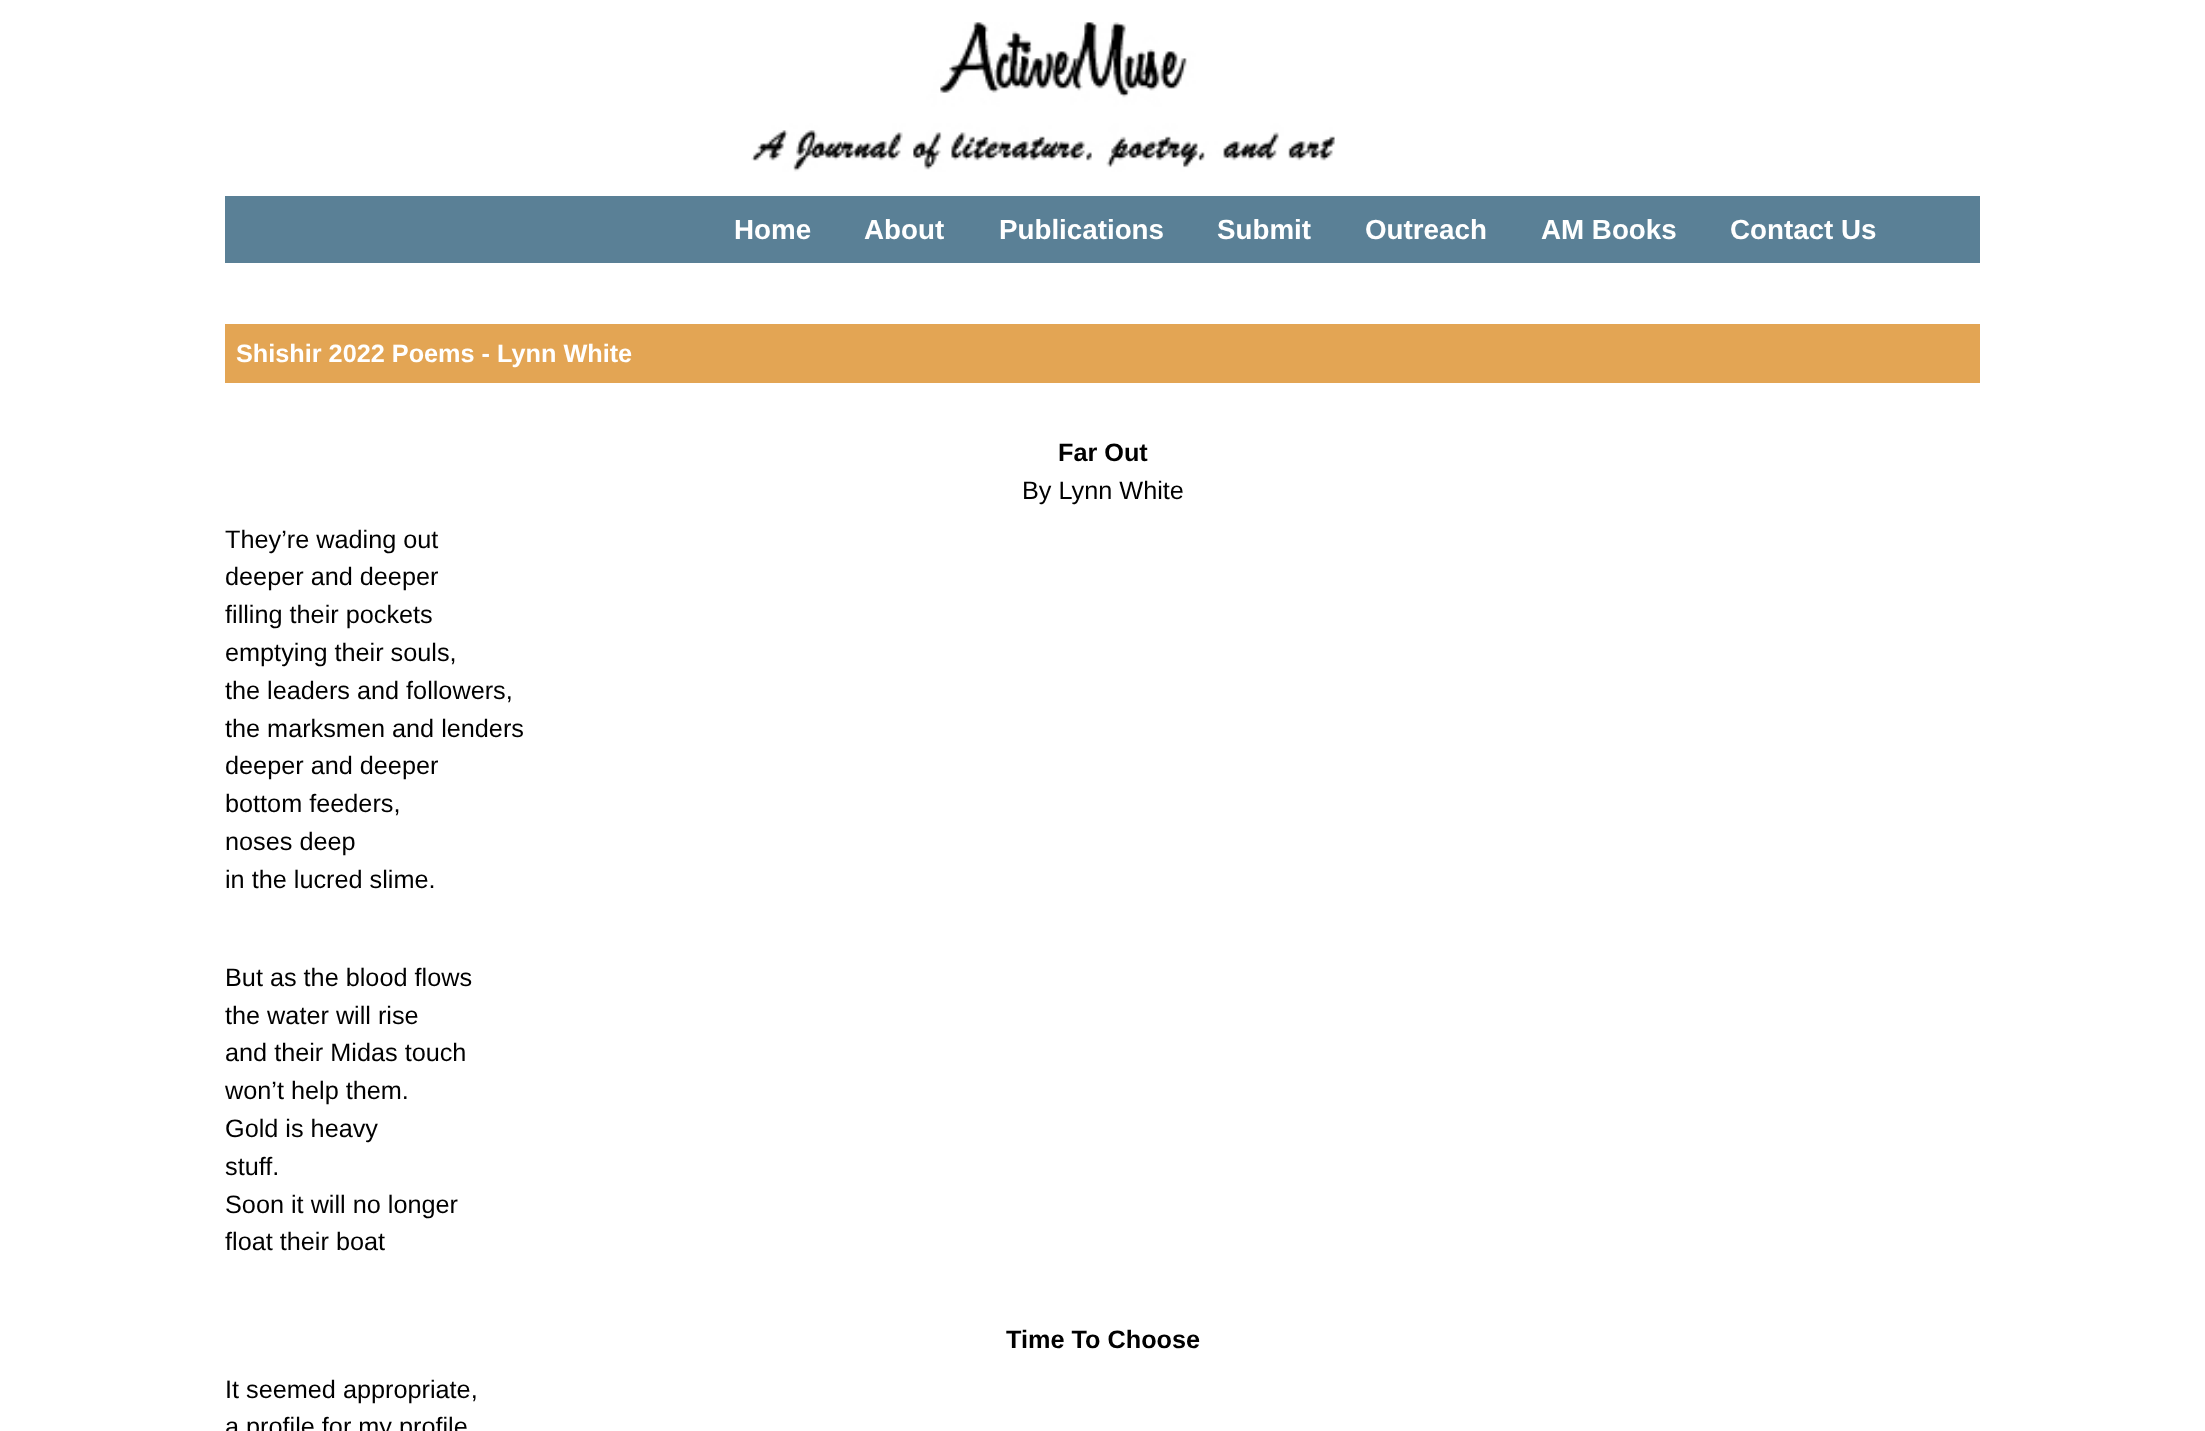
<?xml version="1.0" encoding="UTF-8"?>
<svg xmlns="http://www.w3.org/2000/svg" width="2205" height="1431">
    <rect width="100%" height="100%" fill="#FFFFFF"/>
    <image x="751" y="22" width="584" height="150" href="img_01.png"/>
    <rect x="225" y="196" width="1755" height="67" fill="#5A8096"/>
    <text x="734" y="239" font-family="Liberation Sans" font-size="27.75" font-weight="700" fill="#FFFFFF">Home</text>
    <text x="864" y="239" font-family="Liberation Sans" font-size="27.75" font-weight="700" fill="#FFFFFF">About</text>
    <text x="999" y="239" font-family="Liberation Sans" font-size="27.75" font-weight="700" fill="#FFFFFF">Publications</text>
    <text x="1217" y="239" font-family="Liberation Sans" font-size="27.75" font-weight="700" fill="#FFFFFF">Submit</text>
    <text x="1365" y="239" font-family="Liberation Sans" font-size="27.75" font-weight="700" fill="#FFFFFF">Outreach</text>
    <text x="1541" y="239" font-family="Liberation Sans" font-size="27.75" font-weight="700" fill="#FFFFFF">AM Books</text>
    <text x="1730" y="239" font-family="Liberation Sans" font-size="27.75" font-weight="700" fill="#FFFFFF">Contact Us</text>
    <rect x="225" y="324" width="1755" height="59" fill="#E3A554"/>
    <text x="236" y="362" font-family="Liberation Sans" font-size="25.25" font-weight="700" fill="#FFFFFF">Shishir 2022 Poems - Lynn White</text>
    <text x="1058" y="461" font-family="Liberation Sans" font-size="25.25" font-weight="700" fill="#000000">Far Out</text>
    <text x="1022" y="499" font-family="Liberation Sans" font-size="25.25" fill="#000000">By Lynn White</text>
    <text font-family="Liberation Sans" font-size="25.25" fill="#000000">
        <tspan x="225" y="548">They’re wading out</tspan>
        <tspan x="225" y="585">deeper and deeper</tspan>
        <tspan x="225" y="623">filling their pockets</tspan>
        <tspan x="225" y="661">emptying their souls,</tspan>
        <tspan x="225" y="699">the leaders and followers,</tspan>
        <tspan x="225" y="737">the marksmen and lenders</tspan>
        <tspan x="225" y="774">deeper and deeper</tspan>
        <tspan x="225" y="812">bottom feeders,</tspan>
        <tspan x="225" y="850">noses deep</tspan>
        <tspan x="225" y="888">in the lucred slime.</tspan>
    </text>
    <text font-family="Liberation Sans" font-size="25.25" fill="#000000">
        <tspan x="225" y="986">But as the blood flows</tspan>
        <tspan x="225" y="1024">the water will rise</tspan>
        <tspan x="225" y="1061">and their Midas touch</tspan>
        <tspan x="225" y="1099">won’t help them.</tspan>
        <tspan x="225" y="1137">Gold is heavy</tspan>
        <tspan x="225" y="1175">stuff.</tspan>
        <tspan x="225" y="1213">Soon it will no longer</tspan>
        <tspan x="225" y="1250">float their boat</tspan>
    </text>
    <text x="1006" y="1348" font-family="Liberation Sans" font-size="25.25" font-weight="700" fill="#000000">Time To Choose</text>
    <text font-family="Liberation Sans" font-size="25.25" fill="#000000">
        <tspan x="225" y="1398">It seemed appropriate,</tspan>
        <tspan x="225" y="1435">a profile for my profile</tspan>
    </text>
</svg>
